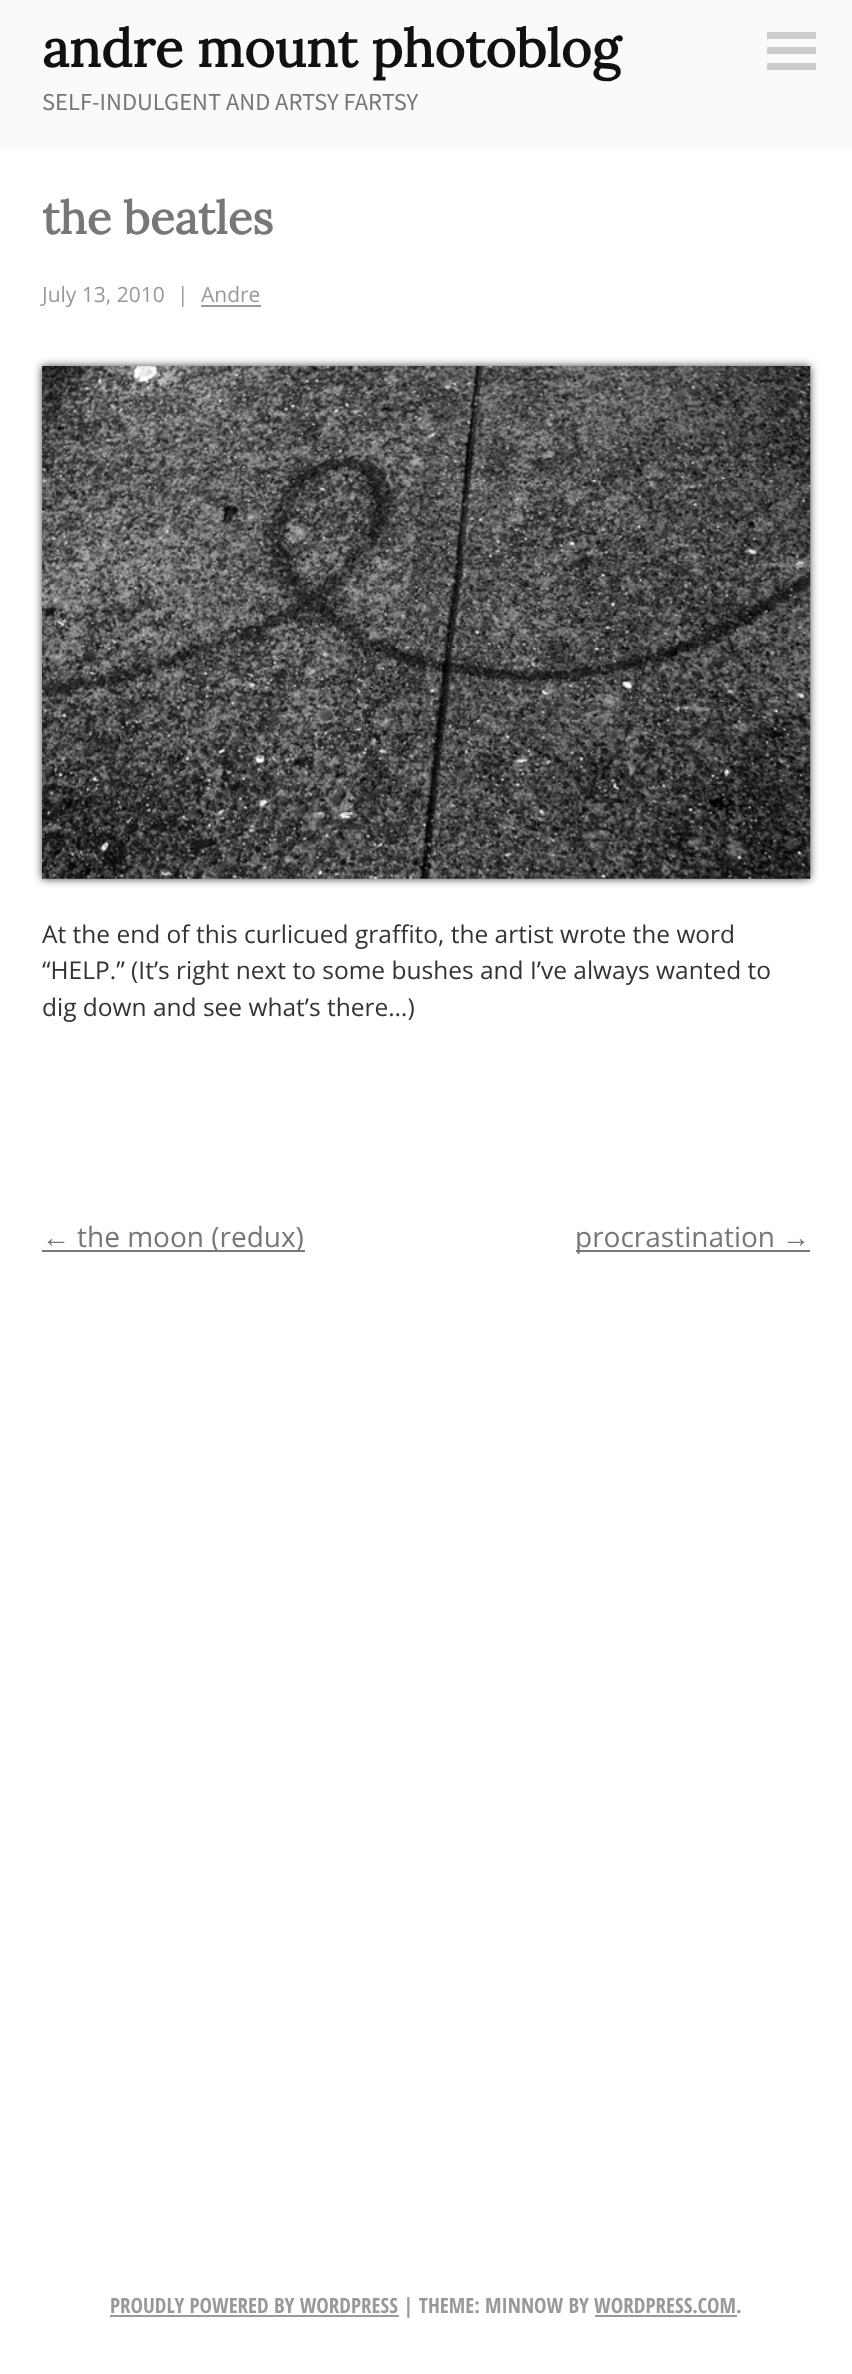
<?xml version="1.0" encoding="UTF-8"?>
<svg xmlns="http://www.w3.org/2000/svg" width="852" height="2374">
    <defs>
        <filter id="blur1" x="-50%" y="-200%" width="200%" height="500%"><feGaussianBlur stdDeviation="4.5"/></filter>
    </defs>
    <rect width="100%" height="100%" fill="#FFFFFF"/>
    <rect x="0" y="0" width="852" height="149" fill="#FAFAFA"/>
    <text x="42" y="67" font-family="Lora" font-size="52.5" font-weight="700" fill="#111111">andre mount photoblog</text>
    <text x="42" y="110" font-family="Source Sans Pro" font-size="24.5" fill="#777777">SELF-INDULGENT AND ARTSY FARTSY</text>
    <rect x="767" y="32" width="49" height="7" fill="#CCCCCC"/>
    <rect x="767" y="47" width="49" height="7" fill="#CCCCCC"/>
    <rect x="767" y="63" width="49" height="7" fill="#CCCCCC"/>
    <text x="42" y="234" font-family="Lora" font-size="45.5" font-weight="700" fill="#777777">the beatles</text>
    <text x="42" y="302" font-family="Open Sans" font-size="21" fill="#999999">July 13, 2010</text>
    <text x="177" y="302" font-family="Open Sans" font-size="21" fill="#999999">|</text>
    <text x="201" y="302" font-family="Open Sans" font-size="21" fill="#999999">Andre</text>
    <rect x="201" y="305" width="60" height="2" fill="#999999"/>
    <rect x="42" y="366" width="768" height="513" fill="#000000" fill-opacity="0.75" filter="url(#blur1)"/>
    <image x="42" y="366" width="769" height="513" href="img_01.png"/>
    <text font-family="Open Sans" font-size="24.5" fill="#333333">
        <tspan x="42" y="943">At the end of this curlicued graffito, the artist wrote the word</tspan>
        <tspan x="42" y="979">“HELP.” (It’s right next to some bushes and I’ve always wanted to</tspan>
        <tspan x="42" y="1016">dig down and see what’s there…)</tspan>
    </text>
    <text x="42" y="1247" font-family="Liberation Sans" font-size="28" fill="#777777">←</text>
    <rect x="42" y="1250" width="263" height="2" fill="#777777"/>
    <text x="77" y="1247" font-family="Open Sans" font-size="28" fill="#777777">the moon (redux)</text>
    <rect x="576" y="1250" width="234" height="2" fill="#777777"/>
    <text x="575" y="1247" font-family="Open Sans" font-size="28" fill="#777777">procrastination</text>
    <text x="782" y="1247" font-family="Liberation Sans" font-size="28" fill="#777777">→</text>
    <rect x="110" y="2315" width="289" height="2" fill="#999999"/>
    <text x="110" y="2313" font-family="Open Sans Condensed" font-size="21" font-weight="700" fill="#999999">PROUDLY POWERED BY WORDPRESS | THEME: MINNOW BY WORDPRESS.COM.</text>
    <rect x="595" y="2315" width="142" height="2" fill="#999999"/>
</svg>
